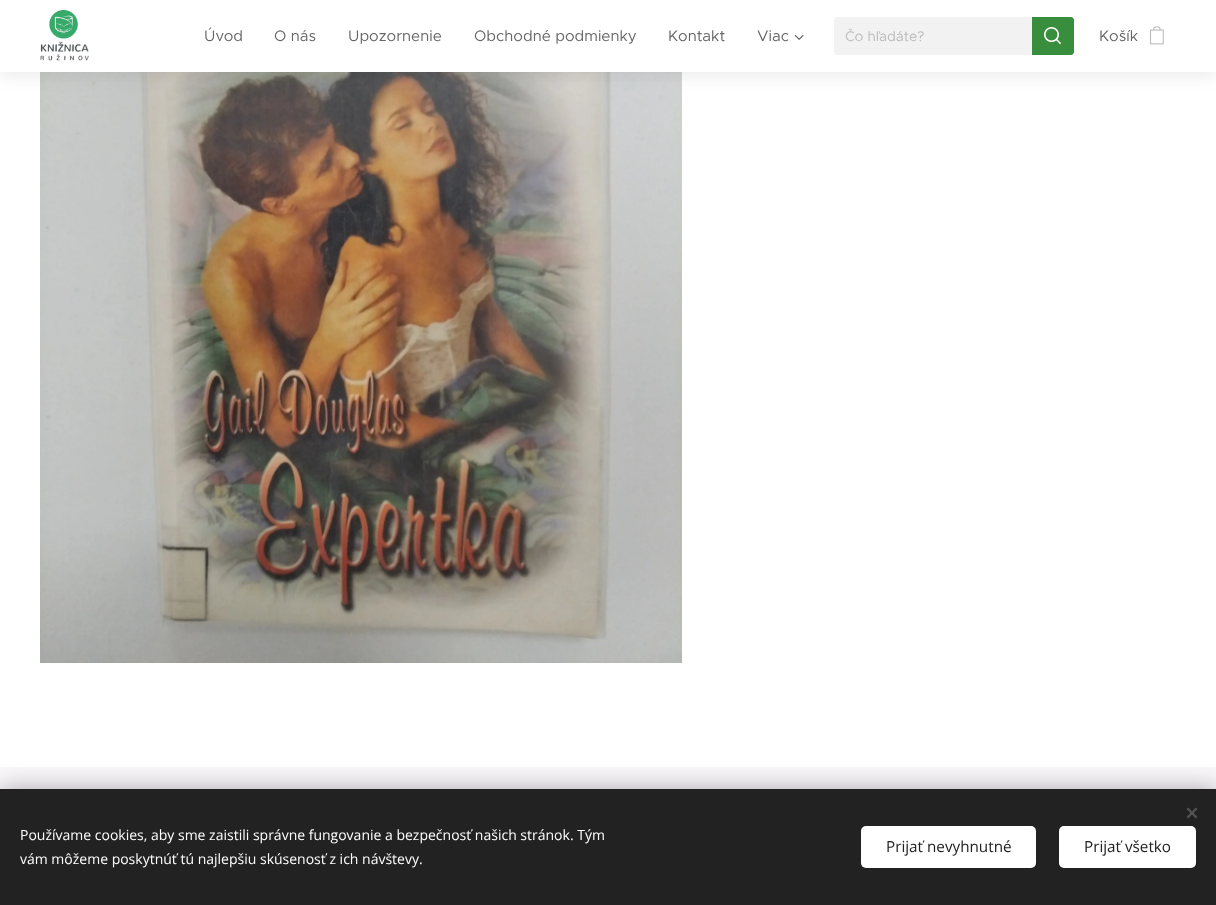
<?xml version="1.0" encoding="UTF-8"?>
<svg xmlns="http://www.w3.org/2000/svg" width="1216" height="905">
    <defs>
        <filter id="blur1" x="-50%" y="-200%" width="200%" height="500%"><feGaussianBlur stdDeviation="7.5"/></filter>
        <filter id="blur2" x="-50%" y="-200%" width="200%" height="500%"><feGaussianBlur stdDeviation="12.5"/></filter>
    </defs>
    <rect width="100%" height="100%" fill="#FFFFFF"/>
    <image x="40" y="72" width="642" height="591" href="img_05.png"/>
    <rect x="0" y="5" width="1216" height="72" fill="#000000" fill-opacity="0.07" filter="url(#blur1)"/>
    <rect x="0" y="0" width="1216" height="72" fill="#FFFFFF"/>
    <image x="40" y="10" width="49" height="51" href="img_01.png"/>
    <text x="204" y="41" font-family="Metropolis" font-size="15.25" fill="#666666">Úvod</text>
    <text x="274" y="41" font-family="Metropolis" font-size="15.25" fill="#666666">O nás</text>
    <text x="348" y="41" font-family="Metropolis" font-size="15.25" fill="#666666">Upozornenie</text>
    <text x="474" y="41" font-family="Metropolis" font-size="15.25" fill="#666666">Obchodné podmienky</text>
    <text x="668" y="41" font-family="Metropolis" font-size="15.25" fill="#666666">Kontakt</text>
    <text x="757" y="41" font-family="Metropolis" font-size="15.25" fill="#666666">Viac</text>
    <image x="794" y="34" width="10" height="6" href="img_02.png"/>
    <path d="M 837 17 H 1032 V 55 H 837 C 835.5 55 834 53.5 834 52 V 20 C 834 18.5 835.5 17 837 17 Z" fill="#F2F2F2"/>
    <text x="845" y="41" font-family="Metropolis" font-size="14" fill="#BABABA">Čo hľadáte?</text>
    <path d="M 1032 17 H 1071 C 1072.5 17 1074 18.5 1074 20 V 52 C 1074 53.5 1072.5 55 1071 55 H 1032 Z" fill="#388E3C"/>
    <image x="1044" y="27" width="18" height="18" href="img_03.png"/>
    <text x="1099" y="41" font-family="Metropolis" font-size="15.25" fill="#666666">Košík</text>
    <image x="1150" y="26" width="14" height="19" href="img_04.png"/>
    <rect x="0" y="767" width="1216" height="22" fill="#F9F7FA"/>
    <rect x="0" y="789" width="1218" height="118" fill="#000000" fill-opacity="0.33" filter="url(#blur2)"/>
    <rect x="0" y="789" width="1216" height="116" fill="#222222"/>
    <path d="M 1186.5 817 L 1196 807.5 L 1197.5 809 L 1188 818.5 Z" fill="#555555"/>
    <path d="M 1188 807.5 L 1197.5 817 L 1196 818.5 L 1186.5 809 Z" fill="#555555"/>
    <text font-family="Open Sans" font-size="14" fill="#FFFFFF">
        <tspan x="20" y="840">Používame cookies, aby sme zaistili správne fungovanie a bezpečnosť našich stránok. Tým</tspan>
        <tspan x="20" y="864">vám môžeme poskytnúť tú najlepšiu skúsenosť z ich návštevy.</tspan>
    </text>
    <rect x="861" y="826" width="175" height="42" rx="5" fill="#FFFFFF"/>
    <text x="886" y="852" font-family="Open Sans" font-size="15.25" fill="#222222">Prijať nevyhnutné</text>
    <rect x="1059" y="826" width="137" height="42" rx="5" fill="#FFFFFF"/>
    <text x="1084" y="852" font-family="Open Sans" font-size="15.25" fill="#222222">Prijať všetko</text>
</svg>
